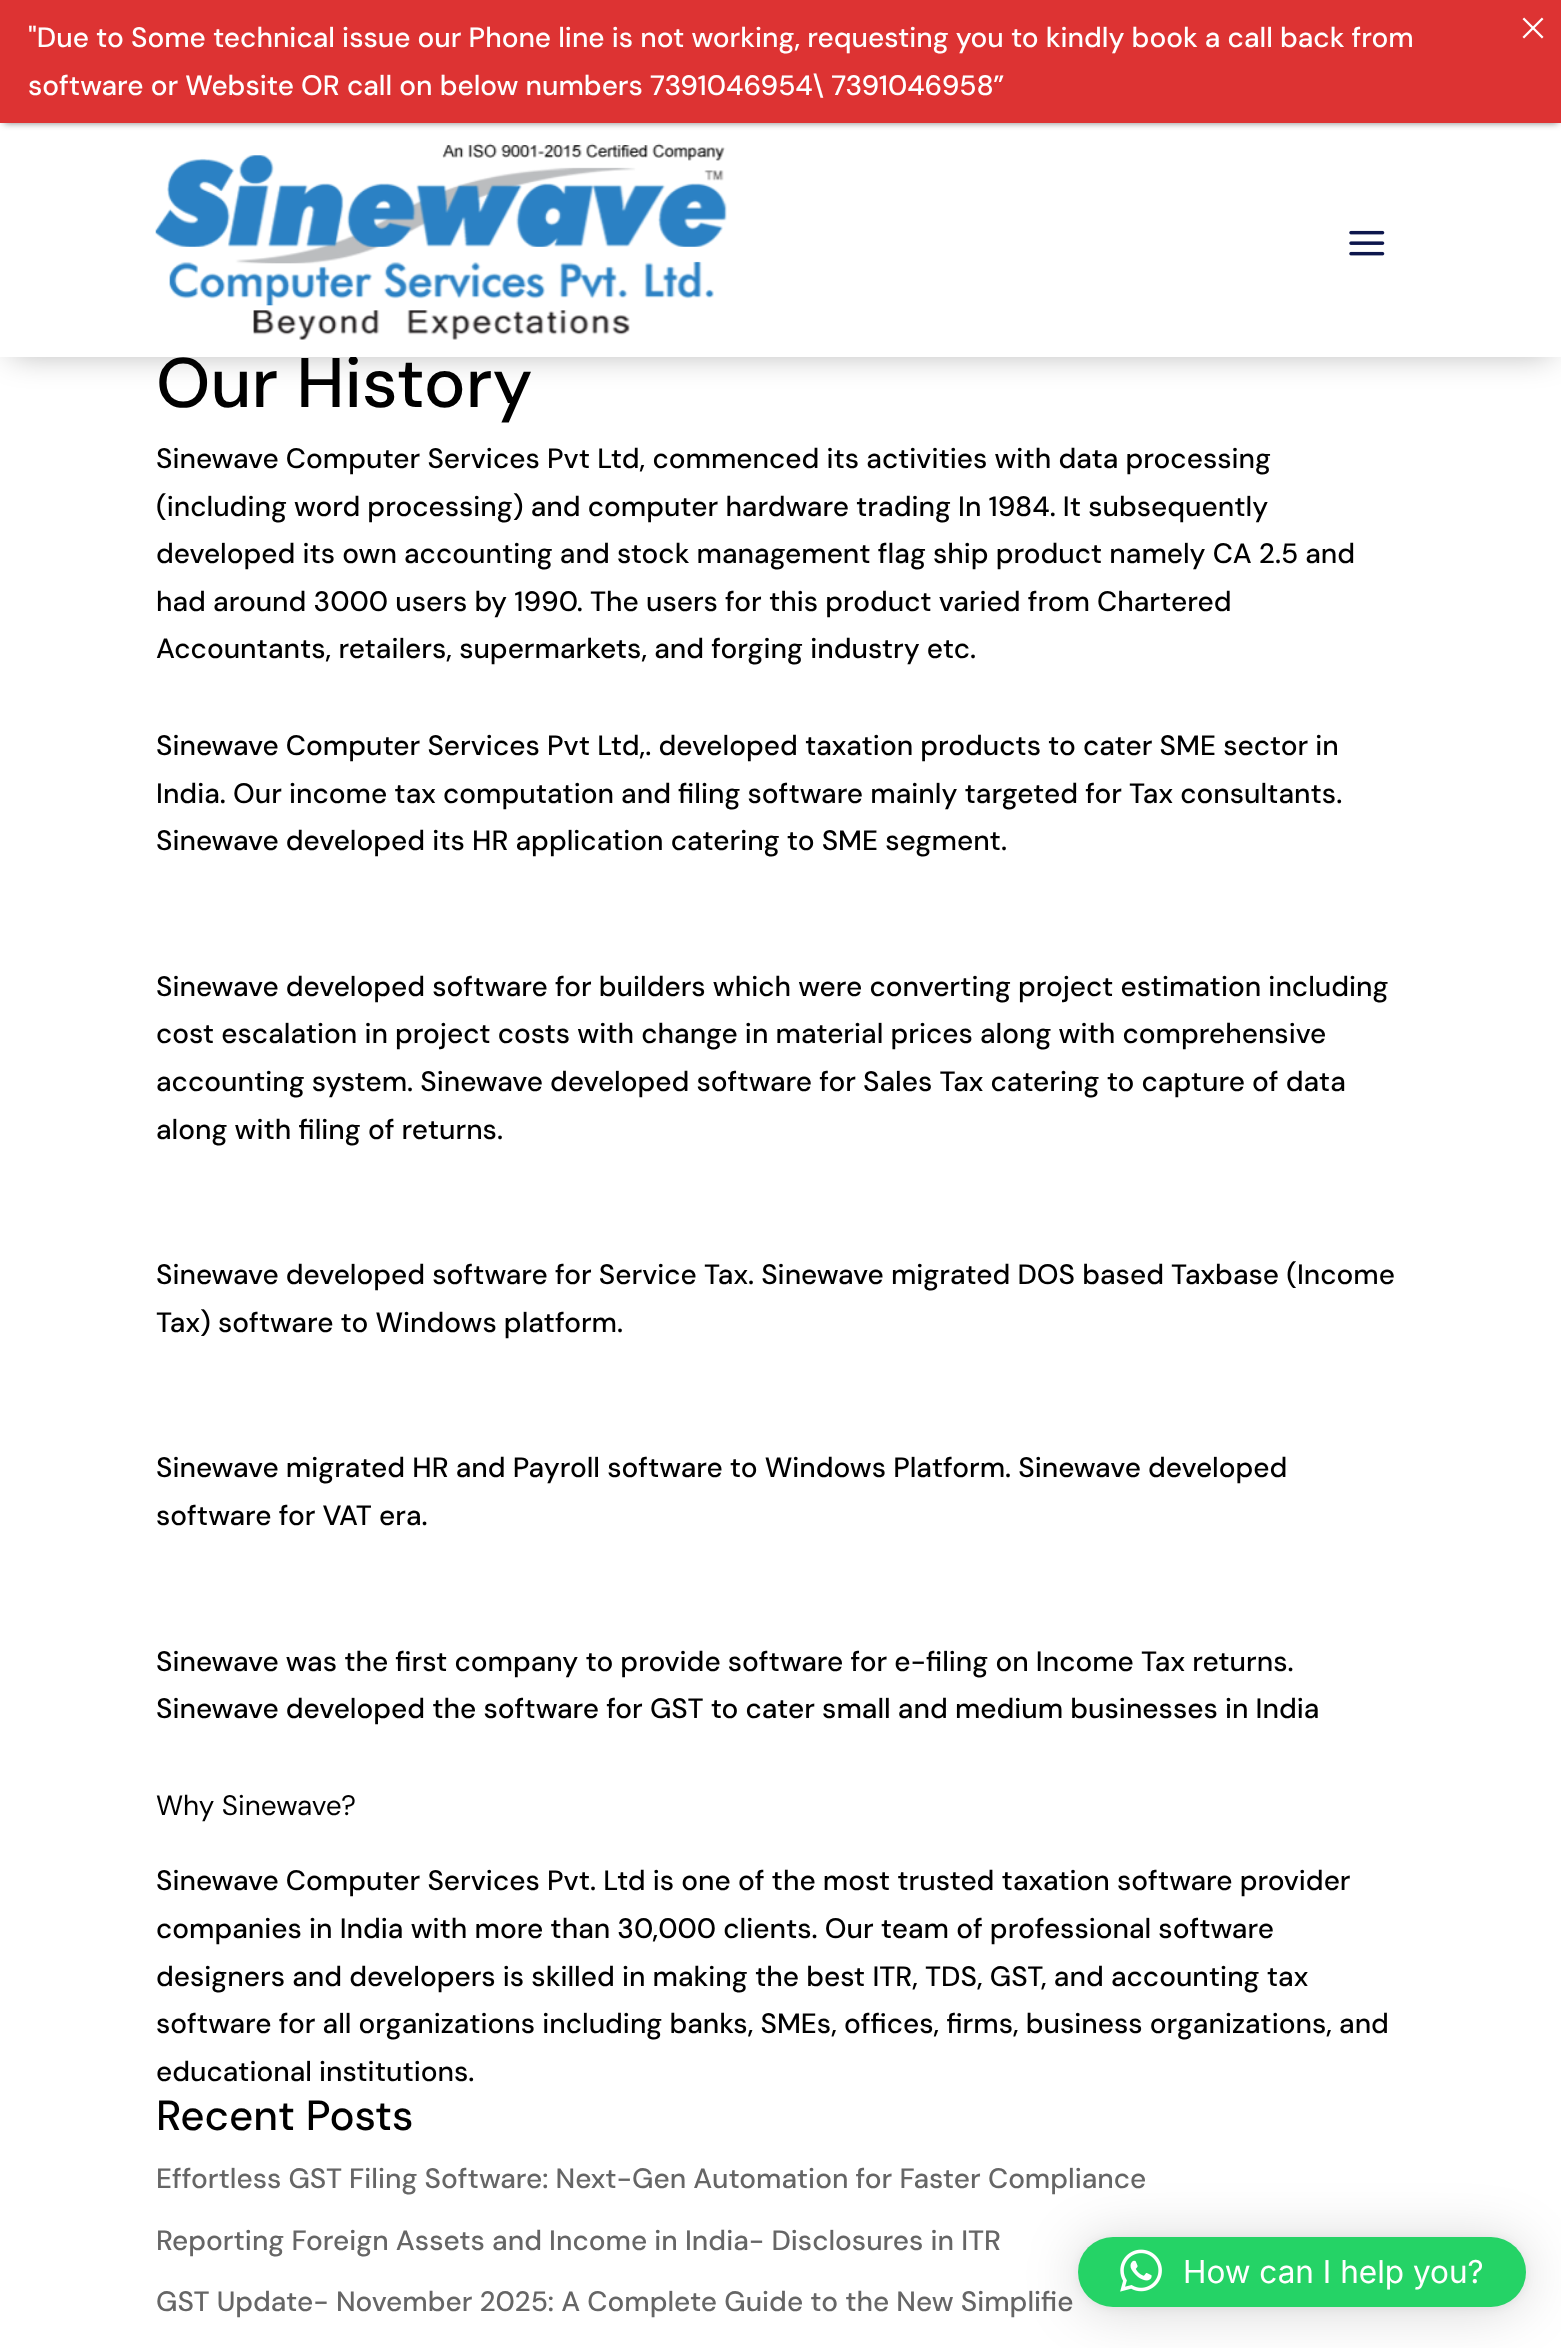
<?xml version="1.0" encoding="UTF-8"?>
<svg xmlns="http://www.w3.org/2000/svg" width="1561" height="2348">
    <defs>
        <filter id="blur1" x="-50%" y="-200%" width="200%" height="500%"><feGaussianBlur stdDeviation="16"/></filter>
        <filter id="blur2" x="-50%" y="-200%" width="200%" height="500%"><feGaussianBlur stdDeviation="3.5"/></filter>
        <filter id="blur3" x="-50%" y="-200%" width="200%" height="500%"><feGaussianBlur stdDeviation="28"/></filter>
        <filter id="blur4" x="-50%" y="-200%" width="200%" height="500%"><feGaussianBlur stdDeviation="5"/></filter>
    </defs>
    <rect width="100%" height="100%" fill="#FFFFFF"/>
    <rect x="11" y="140" width="1540" height="214" fill="#000000" fill-opacity="0.3" filter="url(#blur1)"/>
    <text x="156" y="407" font-family="DM Sans" font-size="70" font-weight="500" fill="#000000">Our History</text>
    <rect x="0" y="123" width="1561" height="234" fill="#FFFFFF"/>
    <rect x="4" y="7" width="1554" height="116" fill="#000000" fill-opacity="0.5" filter="url(#blur2)"/>
    <rect x="0" y="0" width="1561" height="123" fill="#DD3333"/>
    <text font-family="DM Sans" font-size="28" font-weight="500" fill="#FFFFFF">
        <tspan x="28" y="47">"Due to Some technical issue our Phone line is not working, requesting you to kindly book a call back from</tspan>
        <tspan x="28" y="95">software or Website OR call on below numbers 7391046954\ 7391046958”</tspan>
    </text>
    <image x="1522" y="17" width="22" height="22" href="img_01.png"/>
    <image x="155" y="143" width="572" height="197" href="img_02.png"/>
    <image x="1349" y="230" width="36" height="26" href="img_03.png"/>
    <text font-family="DM Sans" font-size="28" font-weight="500" fill="#000000">
        <tspan x="156" y="468">Sinewave Computer Services Pvt Ltd, commenced its activities with data processing</tspan>
        <tspan x="156" y="516">(including word processing) and computer hardware trading In 1984. It subsequently</tspan>
        <tspan x="156" y="563">developed its own accounting and stock management flag ship product namely CA 2.5 and</tspan>
        <tspan x="156" y="611">had around 3000 users by 1990. The users for this product varied from Chartered</tspan>
        <tspan x="156" y="658">Accountants, retailers, supermarkets, and forging industry etc.</tspan>
    </text>
    <text font-family="DM Sans" font-size="28" font-weight="500" fill="#000000">
        <tspan x="156" y="755">Sinewave Computer Services Pvt Ltd,. developed taxation products to cater SME sector in</tspan>
        <tspan x="156" y="803">India. Our income tax computation and filing software mainly targeted for Tax consultants.</tspan>
        <tspan x="156" y="850">Sinewave developed its HR application catering to SME segment.</tspan>
    </text>
    <text font-family="DM Sans" font-size="28" font-weight="500" fill="#000000">
        <tspan x="156" y="996">Sinewave developed software for builders which were converting project estimation including</tspan>
        <tspan x="156" y="1043">cost escalation in project costs with change in material prices along with comprehensive</tspan>
        <tspan x="156" y="1091">accounting system. Sinewave developed software for Sales Tax catering to capture of data</tspan>
        <tspan x="156" y="1139">along with filing of returns.</tspan>
    </text>
    <text font-family="DM Sans" font-size="28" font-weight="500" fill="#000000">
        <tspan x="156" y="1284">Sinewave developed software for Service Tax. Sinewave migrated DOS based Taxbase (Income</tspan>
        <tspan x="156" y="1332">Tax) software to Windows platform.</tspan>
    </text>
    <text font-family="DM Sans" font-size="28" font-weight="500" fill="#000000">
        <tspan x="156" y="1477">Sinewave migrated HR and Payroll software to Windows Platform. Sinewave developed</tspan>
        <tspan x="156" y="1525">software for VAT era.</tspan>
    </text>
    <text font-family="DM Sans" font-size="28" font-weight="500" fill="#000000">
        <tspan x="156" y="1671">Sinewave was the first company to provide software for e-filing on Income Tax returns.</tspan>
        <tspan x="156" y="1718">Sinewave developed the software for GST to cater small and medium businesses in India</tspan>
    </text>
    <text x="156" y="1815" font-family="DM Sans" font-size="28" fill="#000000">Why Sinewave?</text>
    <text font-family="DM Sans" font-size="28" font-weight="500" fill="#000000">
        <tspan x="156" y="1890">Sinewave Computer Services Pvt. Ltd is one of the most trusted taxation software provider</tspan>
        <tspan x="156" y="1938">companies in India with more than 30,000 clients. Our team of professional software</tspan>
        <tspan x="156" y="1986">designers and developers is skilled in making the best ITR, TDS, GST, and accounting tax</tspan>
        <tspan x="156" y="2033">software for all organizations including banks, SMEs, offices, firms, business organizations, and</tspan>
        <tspan x="156" y="2081">educational institutions.</tspan>
    </text>
    <text x="156" y="2130" font-family="DM Sans" font-size="42" font-weight="500" fill="#000000">Recent Posts</text>
    <text x="156" y="2188" font-family="DM Sans" font-size="28" font-weight="500" fill="#666666">Effortless GST Filing Software: Next-Gen Automation for Faster Compliance</text>
    <text x="156" y="2250" font-family="DM Sans" font-size="28" font-weight="500" fill="#666666">Reporting Foreign Assets and Income in India- Disclosures in ITR</text>
    <text x="156" y="2311" font-family="DM Sans" font-size="28" font-weight="500" fill="#666666">GST Update- November 2025: A Complete Guide to the New Simplifie</text>
    <rect x="1078" y="2240" width="448" height="70" rx="35" fill="#000000" fill-opacity="0.16" filter="url(#blur3)"/>
    <rect x="1078" y="2238" width="448" height="70" rx="35" fill="#000000" fill-opacity="0.06" filter="url(#blur4)"/>
    <rect x="1078" y="2237" width="448" height="70" rx="35" fill="#25D366"/>
    <image x="1120" y="2249" width="42" height="43" href="img_04.png"/>
    <text x="1183" y="2283" font-family="Inter" font-size="31.5" fill="#FFFFFF">How can I help you?</text>
</svg>
